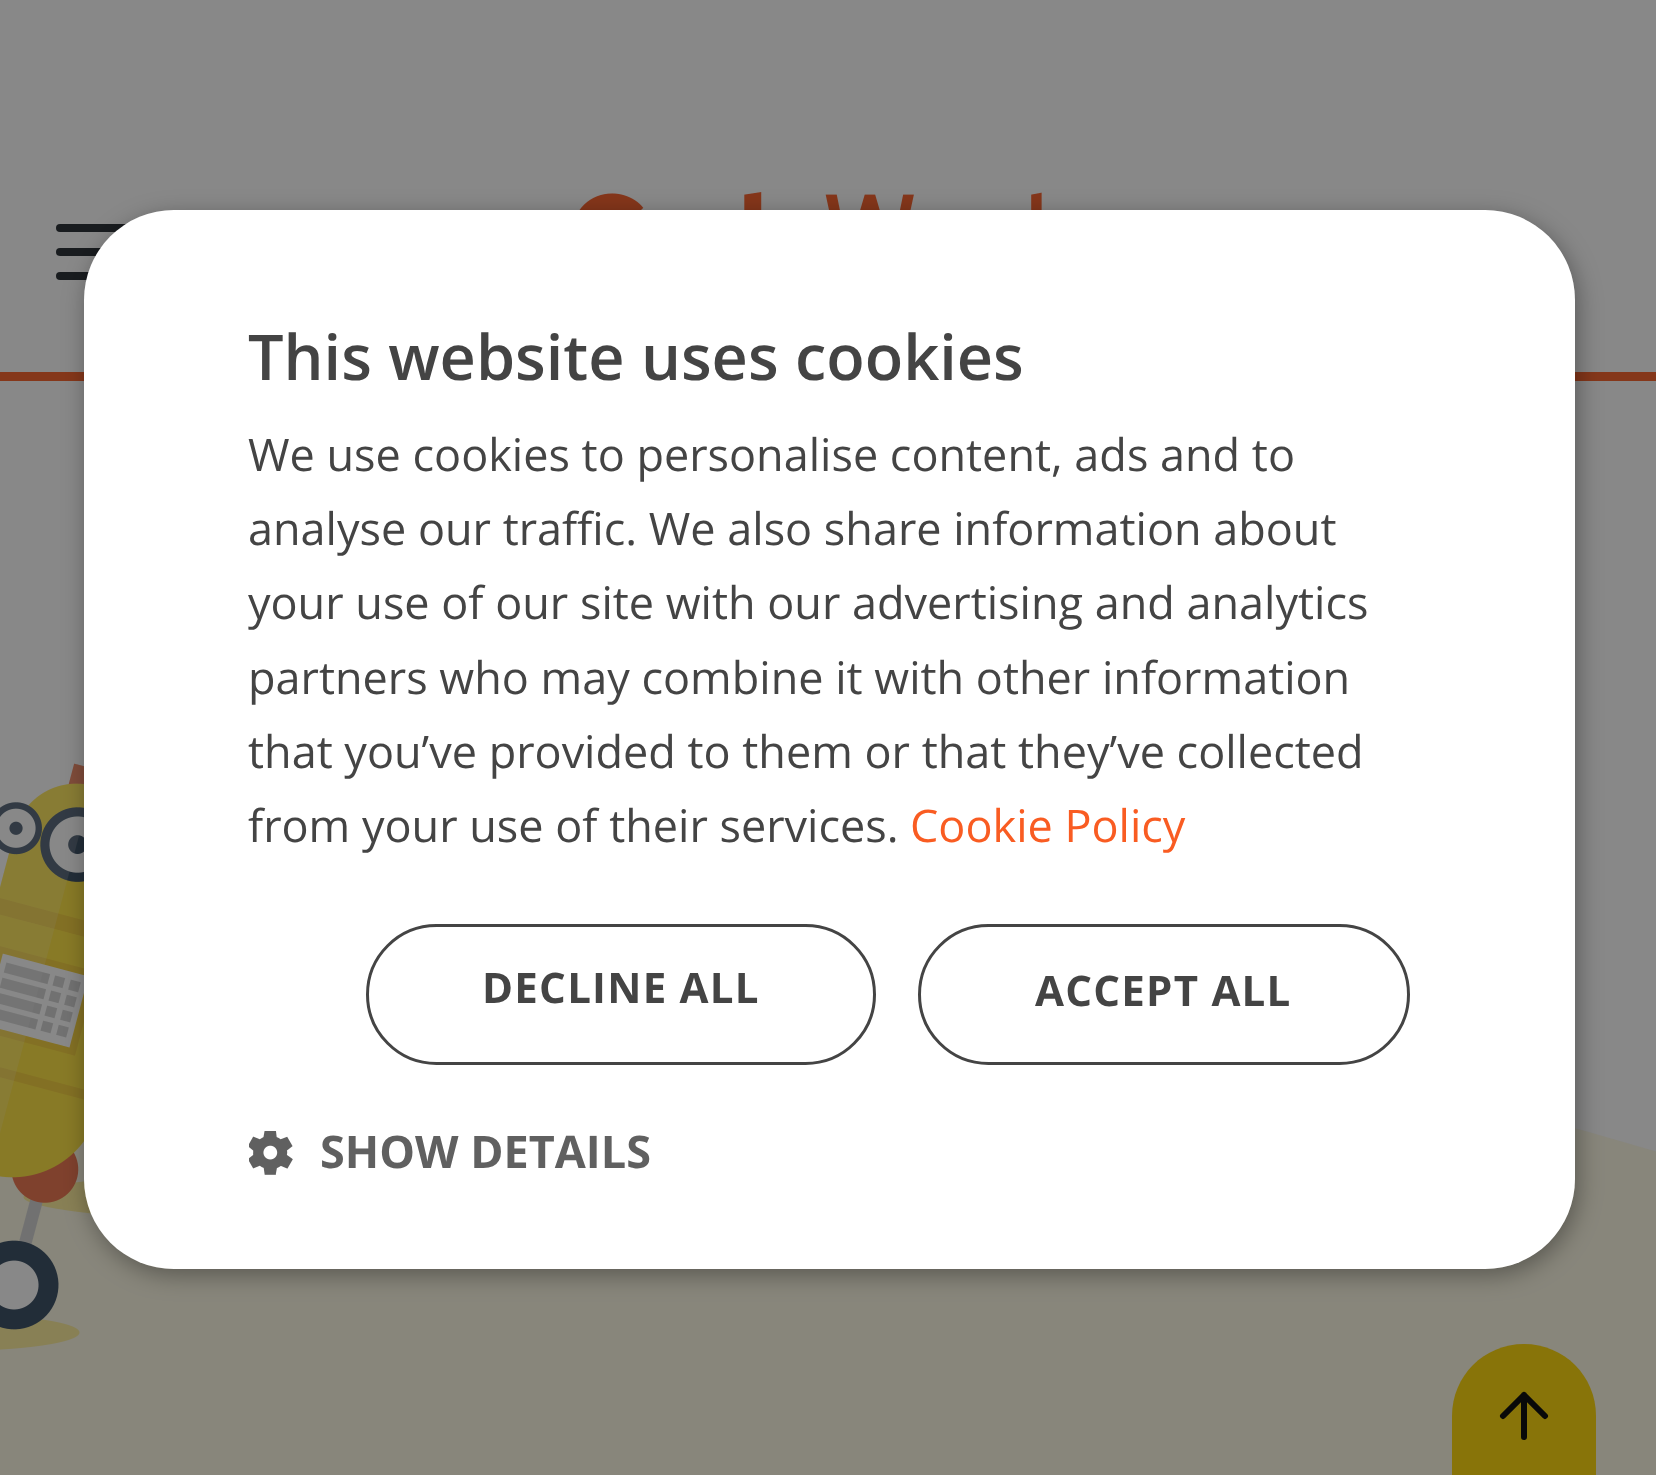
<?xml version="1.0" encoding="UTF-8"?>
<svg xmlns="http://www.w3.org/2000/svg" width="1656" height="1475">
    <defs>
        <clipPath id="clip1"><path d="M 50 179 H 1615 V 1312 H 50 Z M 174 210 H 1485 C 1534.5 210 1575 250.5 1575 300 V 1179 C 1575 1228.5 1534.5 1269 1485 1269 H 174 C 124.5 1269 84 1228.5 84 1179 V 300 C 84 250.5 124.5 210 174 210 Z" clip-rule="evenodd"/></clipPath>
        <filter id="blur1" x="-50%" y="-200%" width="200%" height="500%"><feGaussianBlur stdDeviation="12"/></filter>
    </defs>
    <rect width="100%" height="100%" fill="#888888"/>
    <rect x="0" y="372" width="1656" height="9" fill="#85371A"/>
    <image x="579" y="192" width="463" height="18" href="img_01.png"/>
    <path d="M 60 276 H 132" fill="none" stroke="#191C1F" stroke-width="8" stroke-linecap="round" stroke-linejoin="round"/>
    <path d="M 60 252 H 132" fill="none" stroke="#191C1F" stroke-width="8" stroke-linecap="round" stroke-linejoin="round"/>
    <path d="M 60 228 H 132" fill="none" stroke="#191C1F" stroke-width="8" stroke-linecap="round" stroke-linejoin="round"/>
    <circle cx="744.5" cy="4171.5" r="3154.5" fill="#88867B"/>
    <image x="0" y="763" width="91" height="587" href="img_02.png"/>
    <path d="M 1524 1344 C 1564 1344 1596 1376 1596 1416 V 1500 H 1452 V 1416 C 1452 1376 1484 1344 1524 1344 Z" fill="#887409"/>
    <path d="M 1524 1437 V 1395 M 1503 1416 L 1524 1395 L 1545 1416" fill="none" stroke="#090909" stroke-width="6" stroke-linecap="round" stroke-linejoin="round"/>
    <g clip-path="url(#clip1)">
        <rect x="87" y="216" width="1491" height="1059" rx="90" fill="#000000" fill-opacity="0.35" filter="url(#blur1)"/>
    </g>
    <rect x="84" y="210" width="1491" height="1059" rx="90" fill="#FFFFFF"/>
    <text x="248" y="380" font-family="Open Sans" font-size="63" font-weight="600" fill="#444444">This website uses cookies</text>
    <text font-family="Open Sans" font-size="45" fill="#444444">
        <tspan x="248" y="471">We use cookies to personalise content, ads and to</tspan>
        <tspan x="248" y="545">analyse our traffic. We also share information about</tspan>
        <tspan x="248" y="619">your use of our site with our advertising and analytics</tspan>
        <tspan x="248" y="694">partners who may combine it with other information</tspan>
        <tspan x="248" y="768">that you’ve provided to them or that they’ve collected</tspan>
        <tspan x="248" y="842">from your use of their services.</tspan>
    </text>
    <text x="910" y="842" font-family="Open Sans" font-size="45" fill="#F95C22">Cookie Policy</text>
    <rect x="367.5" y="925.5" width="507" height="138" rx="69" fill="none" stroke="#444444" stroke-width="3"/>
    <text x="482" y="1003" font-family="Open Sans" font-size="42" font-weight="700" letter-spacing="1.25" fill="#444444">DECLINE ALL</text>
    <rect x="919.5" y="925.5" width="489" height="138" rx="69" fill="none" stroke="#444444" stroke-width="3"/>
    <text x="1035" y="1006" font-family="Open Sans" font-size="42" font-weight="700" letter-spacing="1.25" fill="#444444">ACCEPT ALL</text>
    <image x="249" y="1131" width="44" height="44" href="img_03.png"/>
    <text x="320" y="1168" font-family="Open Sans" font-size="45" font-weight="700" fill="#606060">SHOW DETAILS</text>
</svg>
